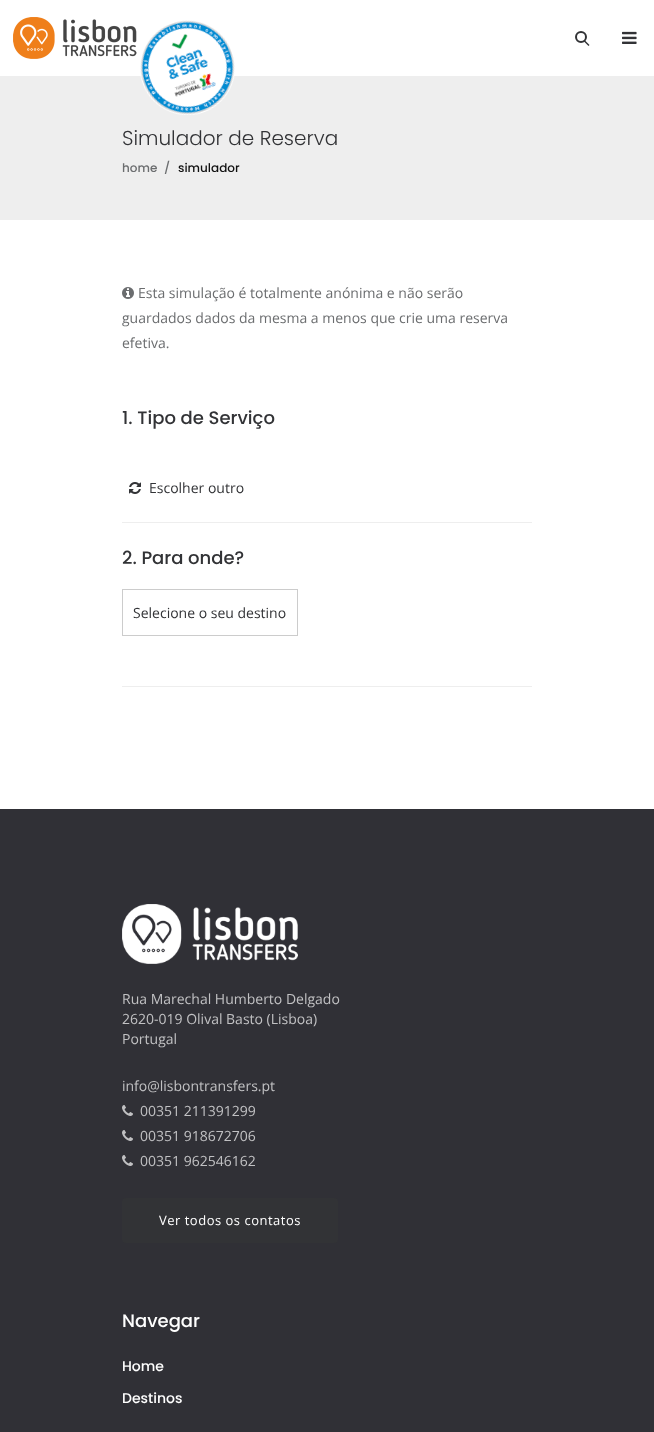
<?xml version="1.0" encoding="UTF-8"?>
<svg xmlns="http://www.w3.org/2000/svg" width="654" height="1432">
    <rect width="100%" height="100%" fill="#FFFFFF"/>
    <image x="13" y="17" width="124" height="42" href="img_01.png"/>
    <rect x="0" y="76" width="654" height="144" fill="#EEEEEE"/>
    <image x="140" y="20" width="95" height="95" href="img_02.png"/>
    <image x="622" y="31" width="15" height="13" href="img_03.png"/>
    <circle cx="581" cy="37" r="5" fill="none" stroke="#323336" stroke-width="2"/>
    <path d="M 584.5 40 L 589.5 45 L 588.5 46 L 583.5 41 Z" fill="#323336"/>
    <text x="122" y="145" font-family="Poppins" font-size="20" font-weight="300" fill="#323336">Simulador de Reserva</text>
    <text x="122" y="172" font-family="Poppins" font-size="12" font-weight="500" fill="#6B6D6F">home</text>
    <text x="164" y="172" font-family="Poppins" font-size="12" font-weight="500" fill="#6B6D6F">/</text>
    <text x="178" y="172" font-family="Poppins" font-size="12" font-weight="500" fill="#101010">simulador</text>
    <image x="122" y="287" width="12" height="12" href="img_04.png"/>
    <text x="138" y="298" font-family="Open Sans" font-size="14" fill="#6B6D6F">Esta simulação é totalmente anónima e não serão</text>
    <text font-family="Open Sans" font-size="14" fill="#6B6D6F">
        <tspan x="122" y="323">guardados dados da mesma a menos que crie uma reserva</tspan>
        <tspan x="122" y="348">efetiva.</tspan>
    </text>
    <text x="122" y="424" font-family="Poppins" font-size="18" font-weight="500" fill="#323336">1. Tipo de Serviço</text>
    <image x="129" y="482" width="12" height="12" href="img_05.png"/>
    <text x="149" y="493" font-family="Open Sans" font-size="14" fill="#323336">Escolher outro</text>
    <rect x="122" y="522" width="410" height="1" fill="#EEEEEE"/>
    <text x="122" y="564" font-family="Poppins" font-size="18" font-weight="500" fill="#323336">2. Para onde?</text>
    <rect x="122.5" y="589.5" width="175" height="46" fill="none" stroke="#CCCCCC"/>
    <text x="133" y="618" font-family="Open Sans" font-size="14" fill="#323336">Selecione o seu destino</text>
    <rect x="122" y="686" width="410" height="1" fill="#EEEEEE"/>
    <rect x="0" y="809" width="654" height="623" fill="#303036"/>
    <image x="122" y="904" width="176" height="60" href="img_06.png"/>
    <text font-family="Open Sans" font-size="14" fill="#C1C1C3">
        <tspan x="122" y="1004">Rua Marechal Humberto Delgado</tspan>
        <tspan x="122" y="1024">2620-019 Olival Basto (Lisboa)</tspan>
        <tspan x="122" y="1044">Portugal</tspan>
    </text>
    <text x="122" y="1091" font-family="Open Sans" font-size="14" fill="#C1C1C3">info@lisbontransfers.pt</text>
    <image x="122" y="1105" width="11" height="11" href="img_07.png"/>
    <text x="140" y="1116" font-family="Open Sans" font-size="14" fill="#C1C1C3">00351 211391299</text>
    <image x="122" y="1130" width="11" height="11" href="img_07.png"/>
    <text x="140" y="1141" font-family="Open Sans" font-size="14" fill="#C1C1C3">00351 918672706</text>
    <image x="122" y="1155" width="11" height="11" href="img_07.png"/>
    <text x="140" y="1166" font-family="Open Sans" font-size="14" fill="#C1C1C3">00351 962546162</text>
    <rect x="122" y="1198" width="216" height="45" rx="4" fill="#323336"/>
    <text x="159" y="1225" font-family="Open Sans" font-size="13" letter-spacing="0.5" fill="#FFFFFF">Ver todos os contatos</text>
    <text x="122" y="1327" font-family="Poppins" font-size="18" font-weight="500" fill="#FFFFFF">Navegar</text>
    <text x="122" y="1371" font-family="Poppins" font-size="14" font-weight="500" fill="#FFFFFF">Home</text>
    <text x="122" y="1403" font-family="Poppins" font-size="14" font-weight="500" fill="#FFFFFF">Destinos</text>
</svg>
